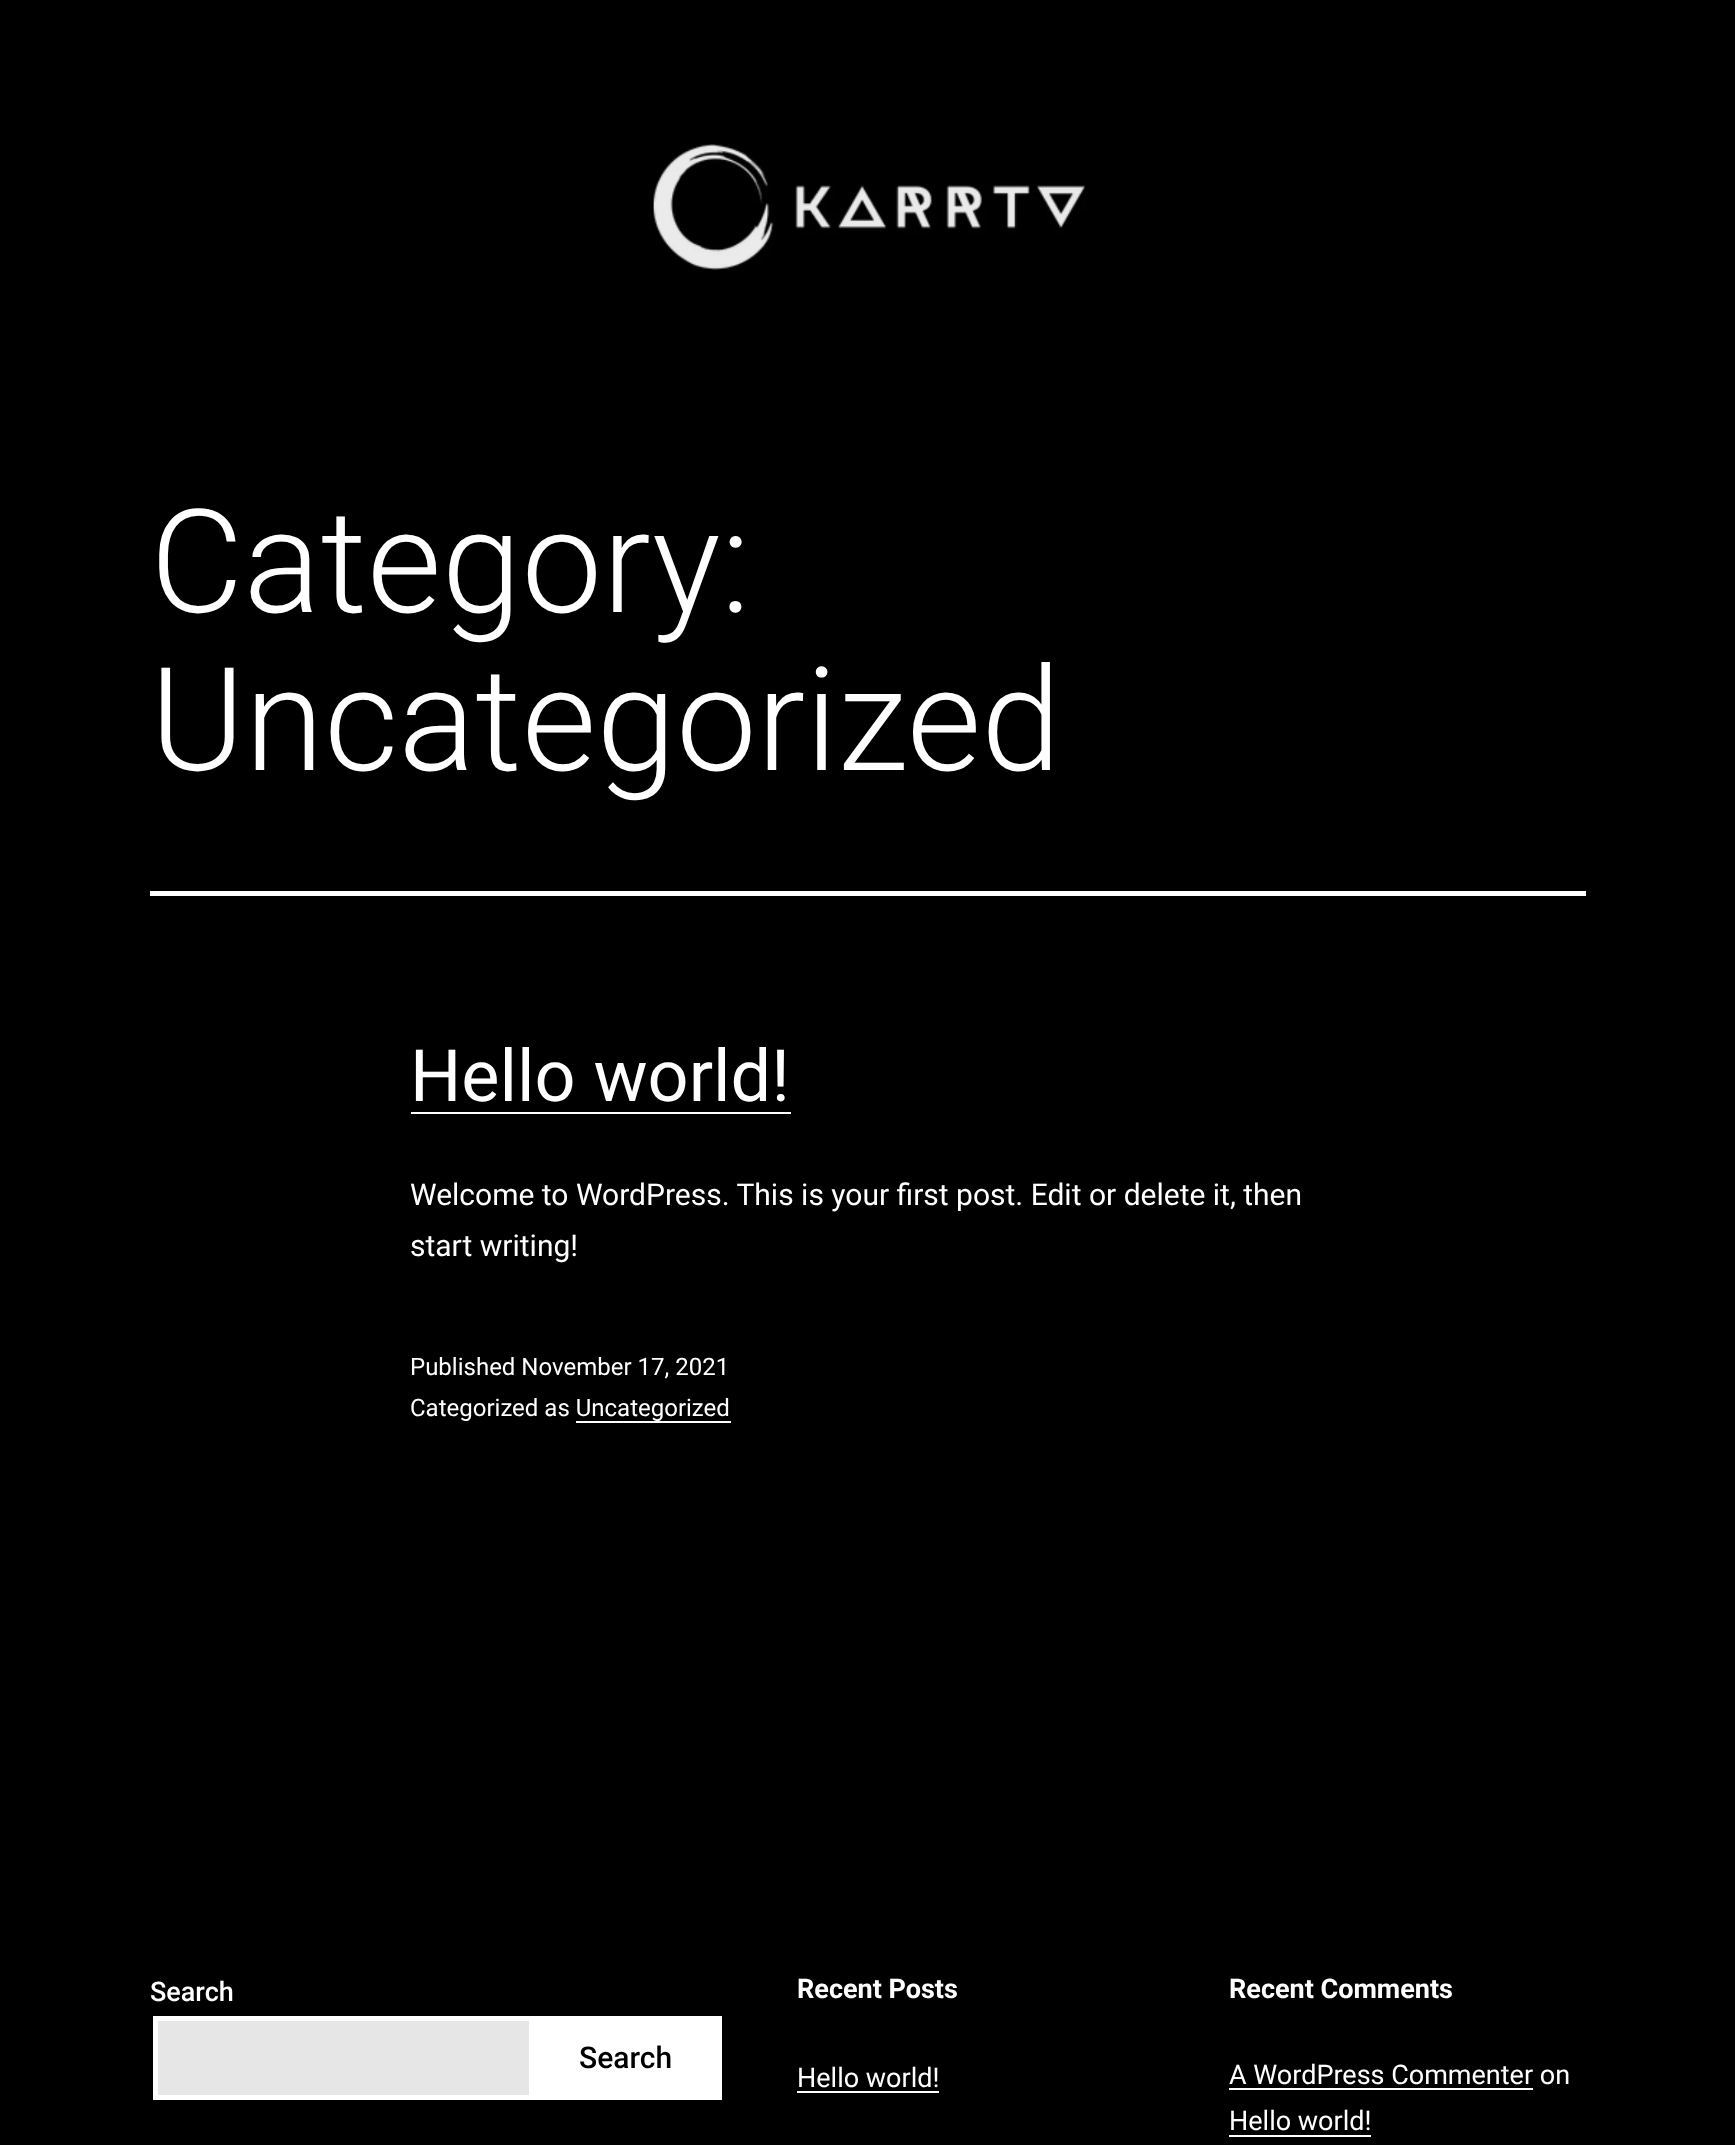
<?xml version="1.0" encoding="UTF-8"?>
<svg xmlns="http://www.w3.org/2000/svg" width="1735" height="2145">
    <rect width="100%" height="100%" fill="#000000"/>
    <image x="653" y="144" width="433" height="126" href="img_01.png"/>
    <rect x="150" y="891" width="1436" height="5" fill="#FFFFFF"/>
    <text font-family="Roboto" font-size="144" font-weight="300" fill="#FFFFFF">
        <tspan x="150" y="612">Category:</tspan>
        <tspan x="150" y="770">Uncategorized</tspan>
    </text>
    <text x="410" y="1101" font-family="Roboto" font-size="72" fill="#FFFFFF">Hello world!</text>
    <rect x="411" y="1112" width="380" height="2" fill="#FFFFFF"/>
    <text font-family="Roboto" font-size="30" fill="#FFFFFF">
        <tspan x="410" y="1205">Welcome to WordPress. This is your first post. Edit or delete it, then</tspan>
        <tspan x="410" y="1256">start writing!</tspan>
    </text>
    <text font-family="Roboto" font-size="24" fill="#FFFFFF">
        <tspan x="410" y="1375">Published November 17, 2021</tspan>
        <tspan x="410" y="1416">Categorized as Uncategorized</tspan>
    </text>
    <rect x="576" y="1421" width="155" height="2" fill="#FFFFFF"/>
    <text x="150" y="2001" font-family="Roboto" font-size="27" font-weight="500" fill="#FFFFFF">Search</text>
    <rect x="155.5" y="2018.5" width="376" height="79" fill="#E6E6E6" stroke="#FFFFFF" stroke-width="5"/>
    <rect x="534" y="2016" width="188" height="84" fill="#FFFFFF"/>
    <text x="579" y="2068" font-family="Roboto" font-size="30" font-weight="500" fill="#000000">Search</text>
    <text x="797" y="1998" font-family="Roboto" font-size="27" font-weight="700" fill="#FFFFFF">Recent Posts</text>
    <text x="797" y="2087" font-family="Roboto" font-size="27" fill="#FFFFFF">Hello world!</text>
    <rect x="797" y="2091" width="142" height="2" fill="#FFFFFF"/>
    <text x="1229" y="1998" font-family="Roboto" font-size="27" font-weight="700" fill="#FFFFFF">Recent Comments</text>
    <text x="1229" y="2084" font-family="Roboto" font-size="27" fill="#FFFFFF">A WordPress Commenter on</text>
    <rect x="1229" y="2088" width="304" height="2" fill="#FFFFFF"/>
    <text x="1229" y="2130" font-family="Roboto" font-size="27" fill="#FFFFFF">Hello world!</text>
    <rect x="1229" y="2135" width="142" height="2" fill="#FFFFFF"/>
</svg>
